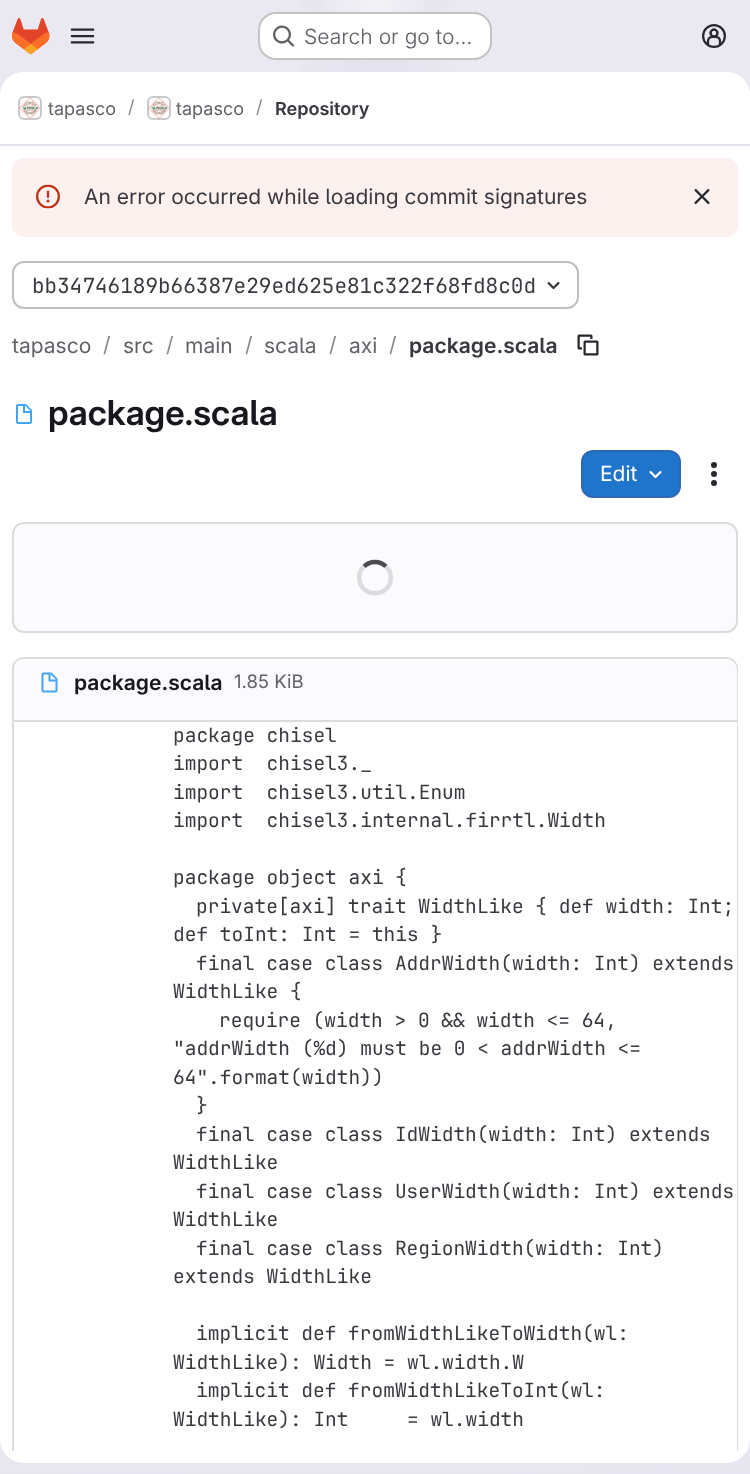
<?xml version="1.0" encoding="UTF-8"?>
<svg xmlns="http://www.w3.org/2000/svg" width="750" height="1474">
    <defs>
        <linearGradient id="g1" gradientUnits="userSpaceOnUse" x1="512" y1="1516" x2="238" y2="-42"><stop offset="0" stop-color="#E8E6F0"/><stop offset="0.7" stop-color="#EAE9F2"/></linearGradient>
        <radialGradient id="g2" gradientUnits="userSpaceOnUse" cx="0" cy="0" r="1" gradientTransform="matrix(375 0 0 1475 375 0)"><stop offset="0" stop-color="#E4E2ED"/><stop offset="0.28" stop-color="#E4E2ED" stop-opacity="0"/></radialGradient>
        <radialGradient id="g3" gradientUnits="userSpaceOnUse" cx="0" cy="0" r="1" gradientTransform="matrix(375 0 0 1475 375 0)"><stop offset="0" stop-color="#E4E2EC"/><stop offset="0.2" stop-color="#E4E2EC" stop-opacity="0"/></radialGradient>
        <radialGradient id="g4" gradientUnits="userSpaceOnUse" cx="375" cy="0" r="1521"><stop offset="0" stop-color="#FFFFFF" stop-opacity="0.6"/><stop offset="0.04" stop-color="#FFFFFF" stop-opacity="0"/></radialGradient>
        <clipPath id="clip1"><rect x="0" y="146" width="750" height="1305"/></clipPath>
    </defs>
    <rect width="100%" height="100%" fill="#FFFFFF"/>
    <rect x="0" y="0" width="750" height="1474" fill="url(#g1)"/>
    <rect x="300" y="0" width="150" height="72" fill="url(#g2)"/>
    <rect x="344" y="11" width="62" height="57" fill="url(#g3)"/>
    <rect x="324" y="0" width="102" height="12" fill="url(#g4)"/>
    <image x="12" y="18" width="38" height="36" href="img_01.png"/>
    <image x="70" y="28" width="25" height="16" href="img_02.png"/>
    <rect x="258" y="12" width="234" height="48" rx="18" fill="#FFFFFF"/>
    <rect x="259" y="13" width="232" height="46" rx="17" fill="none" stroke="#050506" stroke-opacity="0.24" stroke-width="2"/>
    <image x="273" y="25" width="21" height="22" href="img_03.png"/>
    <text x="304" y="44" font-family="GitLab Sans" font-size="21" font-weight="300" fill="#626168">Search or go to…</text>
    <image x="702" y="24" width="24" height="24" href="img_04.png"/>
    <rect x="0" y="72" width="750" height="1391" rx="24" fill="#FFFFFF"/>
    <path d="M 24 72 H 726 C 739.5 72 750 82.5 750 96 V 146 H 0 V 96 C 0 82.5 10.5 72 24 72 Z" fill="#FFFFFF"/>
    <rect x="0" y="144" width="750" height="2" fill="#E1DFEC"/>
    <rect x="19" y="97" width="22" height="22" rx="5" fill="none" stroke="#DCDCDE" stroke-width="2"/>
    <image x="19" y="97" width="22" height="22" href="img_05.png"/>
    <rect x="19" y="97" width="22" height="22" rx="5" fill="none" stroke="#050506" stroke-opacity="0.08" stroke-width="2"/>
    <text x="48" y="115" font-family="GitLab Sans" font-size="18" fill="#626168">tapasco</text>
    <text x="128" y="113" font-family="GitLab Sans" font-size="18" fill="#89888D">/</text>
    <rect x="148" y="97" width="22" height="22" rx="5" fill="none" stroke="#DCDCDE" stroke-width="2"/>
    <image x="148" y="97" width="22" height="22" href="img_05.png"/>
    <rect x="148" y="97" width="22" height="22" rx="5" fill="none" stroke="#050506" stroke-opacity="0.08" stroke-width="2"/>
    <text x="176" y="115" font-family="GitLab Sans" font-size="18" fill="#626168">tapasco</text>
    <text x="256" y="113" font-family="GitLab Sans" font-size="18" fill="#89888D">/</text>
    <text x="275" y="115" font-family="'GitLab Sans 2'" font-size="18" font-weight="600" fill="#3A383F">Repository</text>
    <rect x="12" y="158" width="726" height="79" rx="12" fill="#FCF1EF"/>
    <image x="36" y="184" width="24" height="25" href="img_06.png"/>
    <text x="84" y="204" font-family="GitLab Sans" font-size="21" fill="#3A383F">An error occurred while loading commit signatures</text>
    <image x="694" y="189" width="16" height="15" href="img_07.png"/>
    <rect x="13" y="262" width="565" height="46" rx="11" fill="none" stroke="#BFBFC3" stroke-width="2"/>
    <text x="32" y="293" font-family="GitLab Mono" font-size="21" fill="#3A383F">bb34746189b66387e29ed625e81c322f68fd8c0d</text>
    <image x="547" y="282" width="13" height="8" href="img_08.png"/>
    <text x="12" y="353" font-family="GitLab Sans" font-size="21" fill="#626168">tapasco</text>
    <text x="103" y="352" font-family="GitLab Sans" font-size="21" fill="#89888D">/</text>
    <text x="123" y="353" font-family="GitLab Sans" font-size="21" fill="#626168">src</text>
    <text x="166" y="352" font-family="GitLab Sans" font-size="21" fill="#89888D">/</text>
    <text x="185" y="353" font-family="GitLab Sans" font-size="21" fill="#626168">main</text>
    <text x="245" y="352" font-family="GitLab Sans" font-size="21" fill="#89888D">/</text>
    <text x="264" y="353" font-family="GitLab Sans" font-size="21" fill="#626168">scala</text>
    <text x="329" y="352" font-family="GitLab Sans" font-size="21" fill="#89888D">/</text>
    <text x="349" y="353" font-family="GitLab Sans" font-size="21" fill="#626168">axi</text>
    <text x="389" y="352" font-family="GitLab Sans" font-size="21" fill="#89888D">/</text>
    <text x="409" y="353" font-family="'GitLab Sans 2'" font-size="21" font-weight="600" fill="#3A383F">package.scala</text>
    <image x="577" y="334" width="22" height="22" href="img_09.png"/>
    <image x="16" y="404" width="16" height="20" href="img_10.png"/>
    <text x="48" y="425" font-family="GitLab Sans" font-size="34.5" font-weight="600" fill="#18171D">package.scala</text>
    <rect x="582" y="451" width="98" height="46" rx="11" fill="#1F75CB" stroke="#2F68B4" stroke-width="2"/>
    <text x="600" y="481" font-family="GitLab Sans" font-size="21" fill="#FFFFFF">Edit</text>
    <image x="649" y="471" width="13" height="8" href="img_11.png"/>
    <image x="711" y="462" width="6" height="24" href="img_12.png"/>
    <rect x="13" y="523" width="724" height="109" rx="11" fill="#FBFAFD" stroke="#DCDCDE" stroke-width="2"/>
    <path d="M 364 566.5 C 370 560.5 380 560.5 386 566.5" fill="none" stroke="#4C4B51" stroke-width="4.5"/>
    <path d="M 386 566.5 C 389 569.5 391 573.5 391 577.5 C 391 596.5 363 599 359.5 580.5 C 358.5 575.5 360 570 364 566.5" fill="none" stroke="#DCDCDE" stroke-width="4.5"/>
    <g clip-path="url(#clip1)">
        <path d="M 24 657 C 17 657 12 662 12 669 V 1460 L 14 1461 V 669 C 14 663 18 659 24 659 H 726 C 732 659 736 663 736 669 V 1461 L 738 1460 V 669 C 738 662 733 657 726 657 Z" fill="#DCDCDE"/>
    </g>
    <path d="M 25 659 H 726 C 732 659 737 664 737 670 V 722 H 14 V 670 C 14 664 19 659 25 659 Z" fill="#FBFAFD"/>
    <rect x="14" y="720" width="723" height="2" fill="#DCDCDE"/>
    <image x="41" y="672" width="17" height="21" href="img_13.png"/>
    <text x="74" y="690" font-family="'GitLab Sans 2'" font-size="21" font-weight="600" fill="#18171D">package.scala</text>
    <text x="234" y="688" font-family="GitLab Sans" font-size="18.5" fill="#626168">1.85 KiB</text>
    <rect x="736" y="722" width="1" height="729" fill="#FFFFFF"/>
    <text font-family="GitLab Mono" font-size="19.5" fill="#3A383F" xml:space="preserve"><tspan x="173" y="742">package chisel</tspan><tspan x="173" y="770">import  chisel3._</tspan><tspan x="173" y="799">import  chisel3.util.Enum</tspan><tspan x="173" y="827">import  chisel3.internal.firrtl.Width</tspan></text>
    <text x="173" y="884" font-family="GitLab Mono" font-size="19.5" fill="#3A383F">package object axi {</text>
    <text x="196" y="913" font-family="GitLab Mono" font-size="19.5" fill="#3A383F">private[axi] trait WidthLike { def width: Int;</text>
    <text x="173" y="941" font-family="GitLab Mono" font-size="19.5" fill="#3A383F">def toInt: Int = this }</text>
    <text x="196" y="970" font-family="GitLab Mono" font-size="19.5" fill="#3A383F">final case class AddrWidth(width: Int) extends</text>
    <text x="173" y="998" font-family="GitLab Mono" font-size="19.5" fill="#3A383F">WidthLike {</text>
    <text x="219" y="1027" font-family="GitLab Mono" font-size="19.5" fill="#3A383F">require (width &gt; 0 &amp;&amp; width &lt;= 64,</text>
    <text font-family="GitLab Mono" font-size="19.5" fill="#3A383F">
        <tspan x="173" y="1055">"addrWidth (%d) must be 0 &lt; addrWidth &lt;=</tspan>
        <tspan x="173" y="1084">64".format(width))</tspan>
    </text>
    <text font-family="GitLab Mono" font-size="19.5" fill="#3A383F">
        <tspan x="196" y="1112">}</tspan>
        <tspan x="196" y="1141">final case class IdWidth(width: Int) extends</tspan>
    </text>
    <text x="173" y="1169" font-family="GitLab Mono" font-size="19.5" fill="#3A383F">WidthLike</text>
    <text x="196" y="1198" font-family="GitLab Mono" font-size="19.5" fill="#3A383F">final case class UserWidth(width: Int) extends</text>
    <text x="173" y="1226" font-family="GitLab Mono" font-size="19.5" fill="#3A383F">WidthLike</text>
    <text x="196" y="1255" font-family="GitLab Mono" font-size="19.5" fill="#3A383F">final case class RegionWidth(width: Int)</text>
    <text x="173" y="1283" font-family="GitLab Mono" font-size="19.5" fill="#3A383F">extends WidthLike</text>
    <text x="196" y="1340" font-family="GitLab Mono" font-size="19.5" fill="#3A383F">implicit def fromWidthLikeToWidth(wl:</text>
    <text x="173" y="1369" font-family="GitLab Mono" font-size="19.5" fill="#3A383F">WidthLike): Width = wl.width.W</text>
    <text x="196" y="1397" font-family="GitLab Mono" font-size="19.5" fill="#3A383F">implicit def fromWidthLikeToInt(wl:</text>
    <text x="173" y="1426" font-family="GitLab Mono" font-size="19.5" fill="#3A383F" xml:space="preserve">WidthLike): Int     = wl.width</text>
</svg>
